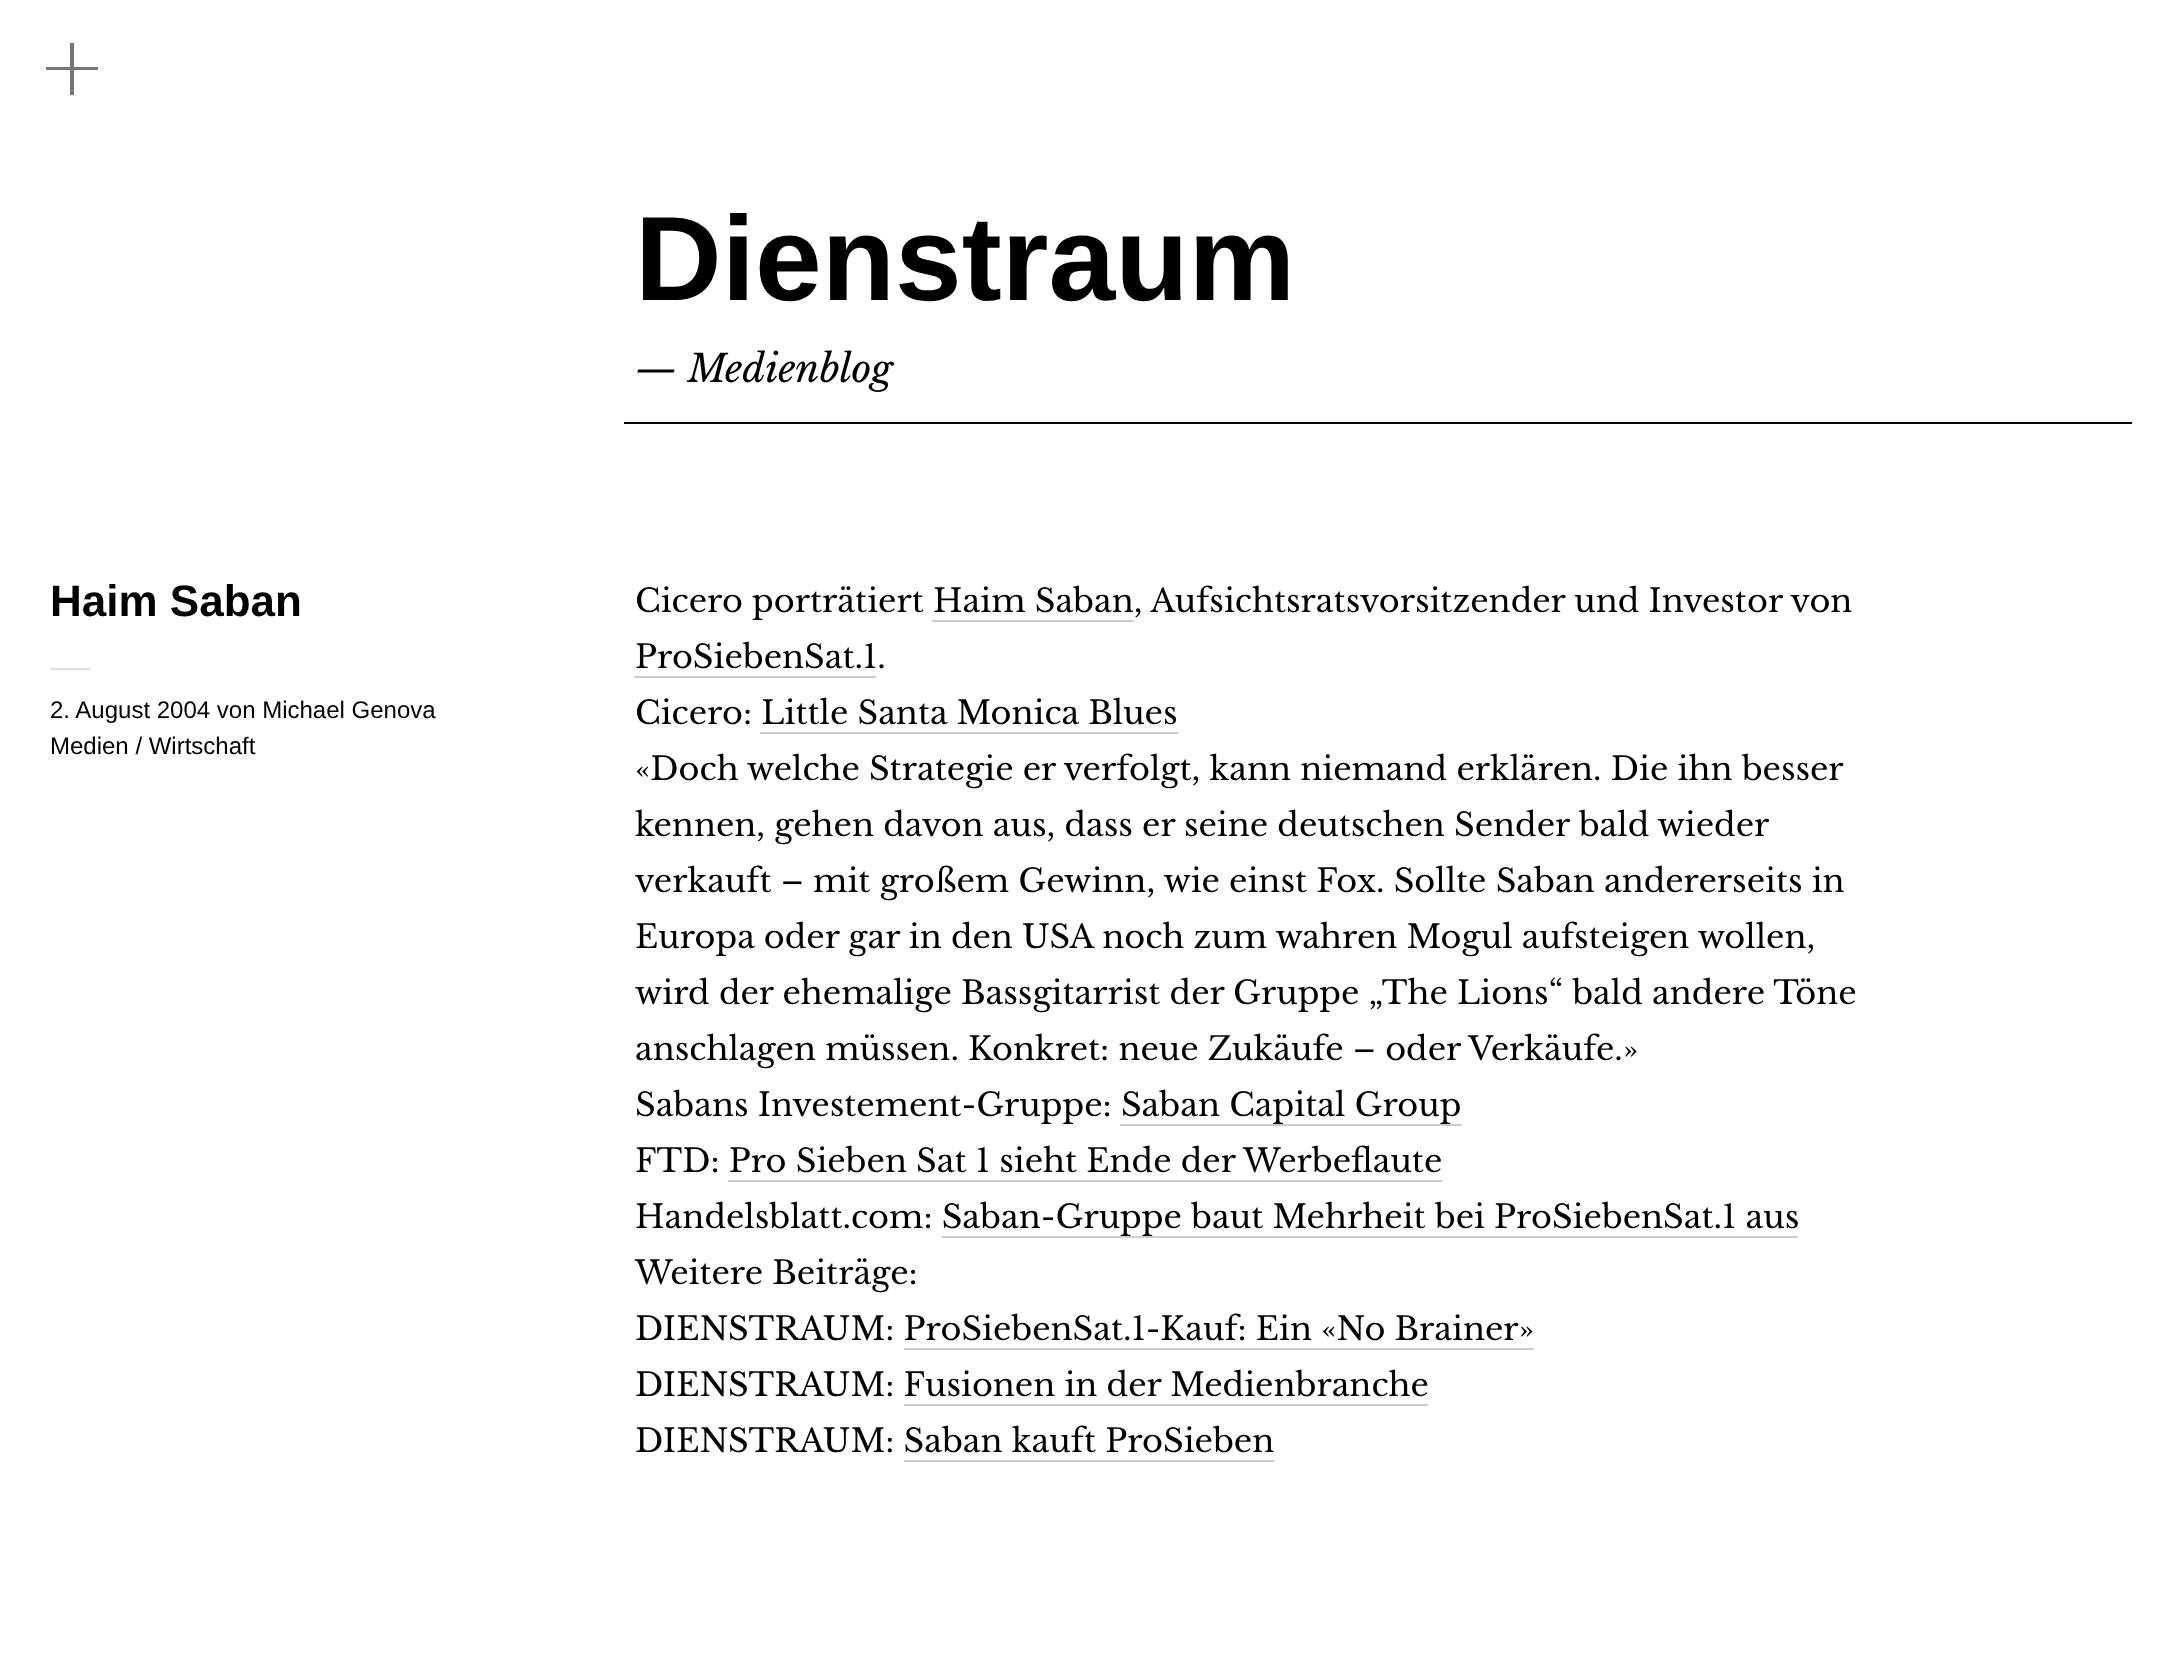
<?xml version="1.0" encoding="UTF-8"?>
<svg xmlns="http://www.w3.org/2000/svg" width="2181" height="1655">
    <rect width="100%" height="100%" fill="#FFFFFF"/>
    <path d="M 98 70 H 74 V 95 H 70 V 70 H 46 V 67 H 70 V 43 H 74 V 67 H 98 Z" fill="#777777"/>
    <rect x="624" y="422" width="1508" height="2" fill="#000000"/>
    <text x="635" y="300" font-family="Liberation Sans" font-size="120" font-weight="700" fill="#000000">Dienstraum</text>
    <text x="635" y="382" font-family="Libre Baskerville" font-size="38" font-style="italic" fill="#000000">— Medienblog</text>
    <text x="50" y="616" font-family="Liberation Sans" font-size="44" font-weight="700" fill="#000000">Haim Saban</text>
    <rect x="50" y="668" width="40" height="2" fill="#DDDDDD"/>
    <text font-family="Liberation Sans" font-size="24" fill="#000000">
        <tspan x="50" y="718">2. August 2004 von Michael Genova</tspan>
        <tspan x="50" y="754">Medien / Wirtschaft</tspan>
    </text>
    <text x="635" y="612" font-family="Libre Baskerville" font-size="32" fill="#000000">Cicero porträtiert Haim Saban, Aufsichtsratsvorsitzender und Investor von</text>
    <rect x="932" y="620" width="202" height="2" fill="#CCCCCC"/>
    <text x="635" y="668" font-family="Libre Baskerville" font-size="32" fill="#000000">ProSiebenSat.1.</text>
    <rect x="634" y="676" width="242" height="2" fill="#CCCCCC"/>
    <text x="635" y="724" font-family="Libre Baskerville" font-size="32" fill="#000000">Cicero: Little Santa Monica Blues</text>
    <rect x="760" y="732" width="418" height="2" fill="#CCCCCC"/>
    <text font-family="Libre Baskerville" font-size="32" fill="#000000">
        <tspan x="635" y="780">«Doch welche Strategie er verfolgt, kann niemand erklären. Die ihn besser</tspan>
        <tspan x="635" y="836">kennen, gehen davon aus, dass er seine deutschen Sender bald wieder</tspan>
        <tspan x="635" y="892">verkauft – mit großem Gewinn, wie einst Fox. Sollte Saban andererseits in</tspan>
        <tspan x="635" y="948">Europa oder gar in den USA noch zum wahren Mogul aufsteigen wollen,</tspan>
        <tspan x="635" y="1004">wird der ehemalige Bassgitarrist der Gruppe „The Lions“ bald andere Töne</tspan>
        <tspan x="635" y="1060">anschlagen müssen. Konkret: neue Zukäufe – oder Verkäufe.»</tspan>
        <tspan x="635" y="1116">Sabans Investement-Gruppe: Saban Capital Group</tspan>
    </text>
    <rect x="1120" y="1124" width="342" height="2" fill="#CCCCCC"/>
    <text x="635" y="1172" font-family="Libre Baskerville" font-size="32" fill="#000000">FTD: Pro Sieben Sat 1 sieht Ende der Werbeflaute</text>
    <rect x="728" y="1180" width="714" height="2" fill="#CCCCCC"/>
    <text x="635" y="1228" font-family="Libre Baskerville" font-size="32" fill="#000000">Handelsblatt.com: Saban-Gruppe baut Mehrheit bei ProSiebenSat.1 aus</text>
    <rect x="942" y="1236" width="856" height="2" fill="#CCCCCC"/>
    <text font-family="Libre Baskerville" font-size="32" fill="#000000">
        <tspan x="635" y="1284">Weitere Beiträge:</tspan>
        <tspan x="635" y="1340">DIENSTRAUM: ProSiebenSat.1-Kauf: Ein «No Brainer»</tspan>
    </text>
    <rect x="904" y="1348" width="630" height="2" fill="#CCCCCC"/>
    <text x="635" y="1396" font-family="Libre Baskerville" font-size="32" fill="#000000">DIENSTRAUM: Fusionen in der Medienbranche</text>
    <rect x="904" y="1404" width="524" height="2" fill="#CCCCCC"/>
    <text x="635" y="1452" font-family="Libre Baskerville" font-size="32" fill="#000000">DIENSTRAUM: Saban kauft ProSieben</text>
    <rect x="904" y="1460" width="370" height="2" fill="#CCCCCC"/>
</svg>
